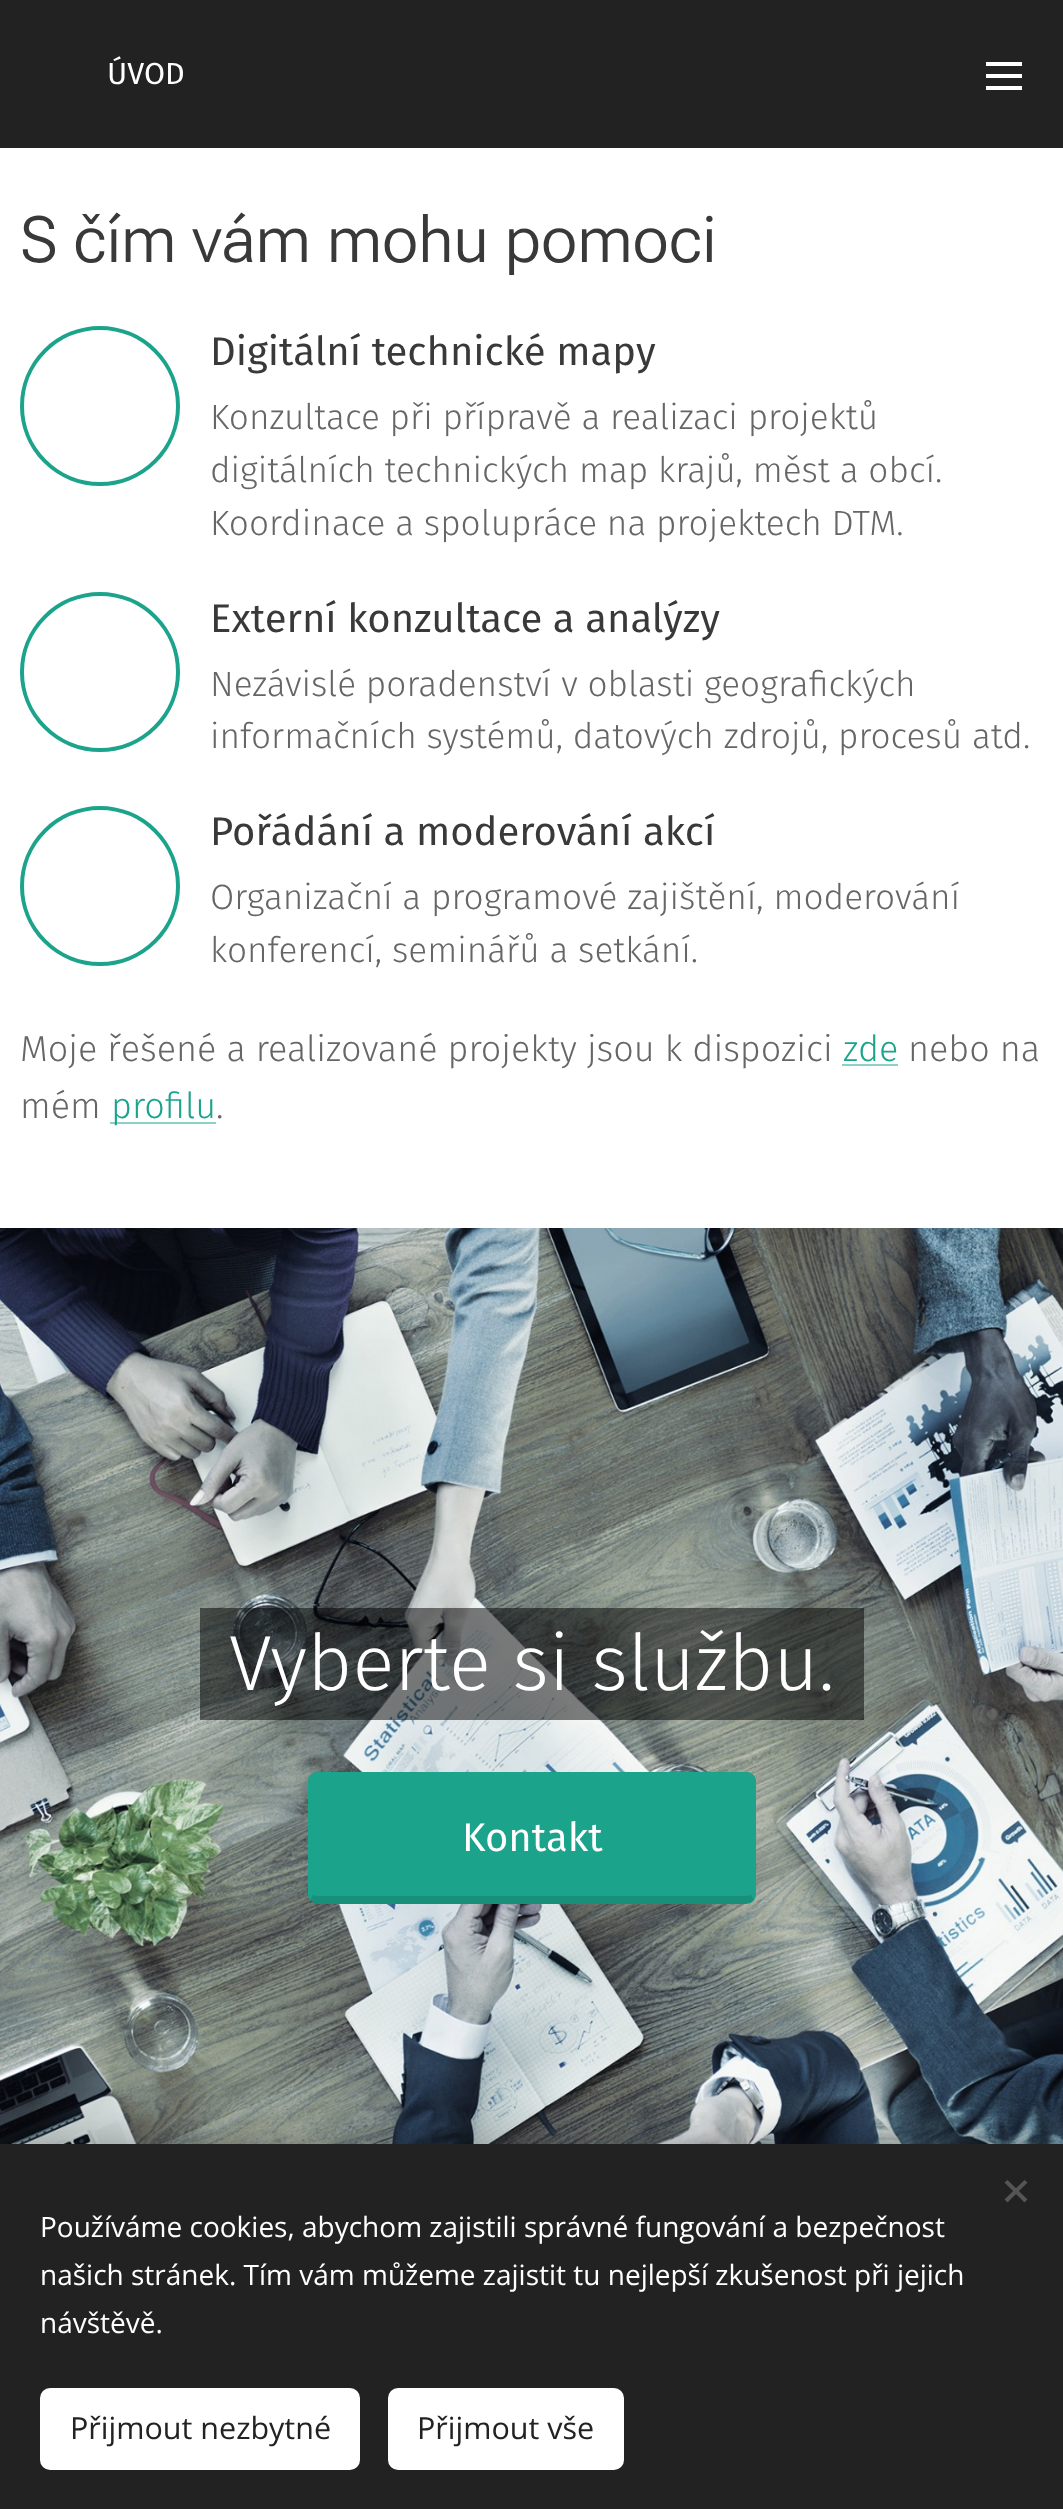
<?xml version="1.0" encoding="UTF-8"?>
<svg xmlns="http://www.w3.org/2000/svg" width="1063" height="2509">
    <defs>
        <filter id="blur1" x="-50%" y="-200%" width="200%" height="500%"><feGaussianBlur stdDeviation="25"/></filter>
    </defs>
    <rect width="100%" height="100%" fill="#FFFFFF"/>
    <rect x="0" y="0" width="1063" height="148" fill="#222222"/>
    <text x="107" y="84" font-family="Fira Sans" font-size="30.5" fill="#FFFFFF">ÚVOD</text>
    <rect x="986" y="74" width="36" height="4" fill="#FFFFFF"/>
    <rect x="986" y="62" width="36" height="4" fill="#FFFFFF"/>
    <rect x="986" y="86" width="36" height="4" fill="#FFFFFF"/>
    <text x="20" y="262" font-family="Roboto Flex" font-size="64" font-weight="300" fill="#393939">S čím vám mohu pomoci</text>
    <circle cx="100" cy="406" r="78" fill="none" stroke="#1BA38C" stroke-width="4"/>
    <text x="210" y="365" font-family="Fira Sans" font-size="40" fill="#393939">Digitální technické mapy</text>
    <text font-family="Fira Sans" font-size="35.2" font-weight="300" fill="#666666">
        <tspan x="210" y="429">Konzultace při přípravě a realizaci projektů</tspan>
        <tspan x="210" y="482">digitálních technických map krajů, měst a obcí.</tspan>
        <tspan x="210" y="535">Koordinace a spolupráce na projektech DTM.</tspan>
    </text>
    <circle cx="100" cy="672" r="78" fill="none" stroke="#1BA38C" stroke-width="4"/>
    <text x="210" y="632" font-family="Fira Sans" font-size="40" fill="#393939">Externí konzultace a analýzy</text>
    <text font-family="Fira Sans" font-size="35.2" font-weight="300" fill="#666666">
        <tspan x="210" y="696">Nezávislé poradenství v oblasti geografických</tspan>
        <tspan x="210" y="748">informačních systémů, datových zdrojů, procesů atd.</tspan>
    </text>
    <circle cx="100" cy="886" r="78" fill="none" stroke="#1BA38C" stroke-width="4"/>
    <text x="210" y="845" font-family="Fira Sans" font-size="40" fill="#393939">Pořádání a moderování akcí</text>
    <text font-family="Fira Sans" font-size="35.2" font-weight="300" fill="#666666">
        <tspan x="210" y="909">Organizační a programové zajištění, moderování</tspan>
        <tspan x="210" y="962">konferencí, seminářů a setkání.</tspan>
    </text>
    <text x="20" y="1061" font-family="Fira Sans" font-size="36" font-weight="300" fill="#666666">Moje řešené a realizované projekty jsou k dispozici</text>
    <text x="843" y="1061" font-family="Fira Sans" font-size="36" font-weight="300" fill="#1BA38C">zde</text>
    <rect x="842" y="1064" width="56" height="2" fill="#8DD1C6"/>
    <text x="908" y="1061" font-family="Fira Sans" font-size="36" font-weight="300" fill="#666666">nebo na</text>
    <text x="20" y="1118" font-family="Fira Sans" font-size="36" font-weight="300" fill="#666666">mém</text>
    <rect x="110" y="1122" width="106" height="2" fill="#8DD1C6"/>
    <text x="111" y="1118" font-family="Fira Sans" font-size="36" font-weight="300" fill="#1BA38C">profilu</text>
    <text x="216" y="1118" font-family="Fira Sans" font-size="36" font-weight="300" fill="#666666">.</text>
    <image x="0" y="1228" width="1063" height="916" href="img_01.png"/>
    <rect x="230" y="1608" width="604" height="112" fill="#000000" fill-opacity="0.5"/>
    <text x="229" y="1690" font-family="Fira Sans" font-size="78" font-weight="300" fill="#FFFFFF">Vyberte si službu.</text>
    <rect x="200" y="1608" width="30" height="112" fill="#000000" fill-opacity="0.5"/>
    <rect x="834" y="1608" width="30" height="112" fill="#000000" fill-opacity="0.5"/>
    <rect x="308" y="1772" width="448" height="132" rx="10" fill="#1BA38C"/>
    <path d="M 318 1772 C 315 1772 312 1773 311 1775 L 314 1778 C 315 1777 316 1776 318 1776 H 746 C 748 1776 749 1777 750 1778 L 753 1775 C 752 1773 749 1772 746 1772 Z" fill="#1BA38C"/>
    <path d="M 756 1894 V 1782 C 756 1779 755 1776 753 1775 L 750 1778 C 751 1779 752 1780 752 1782 V 1894 L 751 1895 L 754 1900 C 755 1899 756 1896 756 1894 Z" fill="#1BA38C"/>
    <path d="M 318 1904 H 746 C 750 1904 752 1903 754 1900 L 751 1895 L 746 1896 H 318 L 313 1895 L 310 1900 C 312 1903 314 1904 318 1904 Z" fill="#000000" fill-opacity="0.12"/>
    <path d="M 308 1782 V 1894 C 308 1896 309 1899 310 1900 L 313 1895 L 312 1894 V 1782 C 312 1780 313 1779 314 1778 L 311 1775 C 309 1776 308 1779 308 1782 Z" fill="#1BA38C"/>
    <text x="462" y="1851" font-family="Fira Sans" font-size="40" fill="#FFFFFF">Kontakt</text>
    <rect x="0" y="2144" width="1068" height="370" fill="#000000" fill-opacity="0.33" filter="url(#blur1)"/>
    <rect x="0" y="2144" width="1063" height="365" fill="#222222"/>
    <path d="M 1004.5 2199.5 L 1024.5 2180 L 1027.5 2182.5 L 1007.5 2202.5 Z" fill="#555555"/>
    <path d="M 1007.5 2180 L 1027.5 2199.5 L 1024.5 2202.5 L 1004.5 2182.5 Z" fill="#555555"/>
    <text font-family="Open Sans" font-size="28" fill="#FFFFFF">
        <tspan x="40" y="2237">Používáme cookies, abychom zajistili správné fungování a bezpečnost</tspan>
        <tspan x="40" y="2285">našich stránek. Tím vám můžeme zajistit tu nejlepší zkušenost při jejich</tspan>
        <tspan x="40" y="2333">návštěvě.</tspan>
    </text>
    <rect x="40" y="2388" width="320" height="82" rx="10" fill="#FFFFFF"/>
    <text x="70" y="2439" font-family="Open Sans" font-size="30.5" fill="#222222">Přijmout nezbytné</text>
    <rect x="388" y="2388" width="236" height="82" rx="10" fill="#FFFFFF"/>
    <text x="417" y="2439" font-family="Open Sans" font-size="30.5" fill="#222222">Přijmout vše</text>
</svg>
